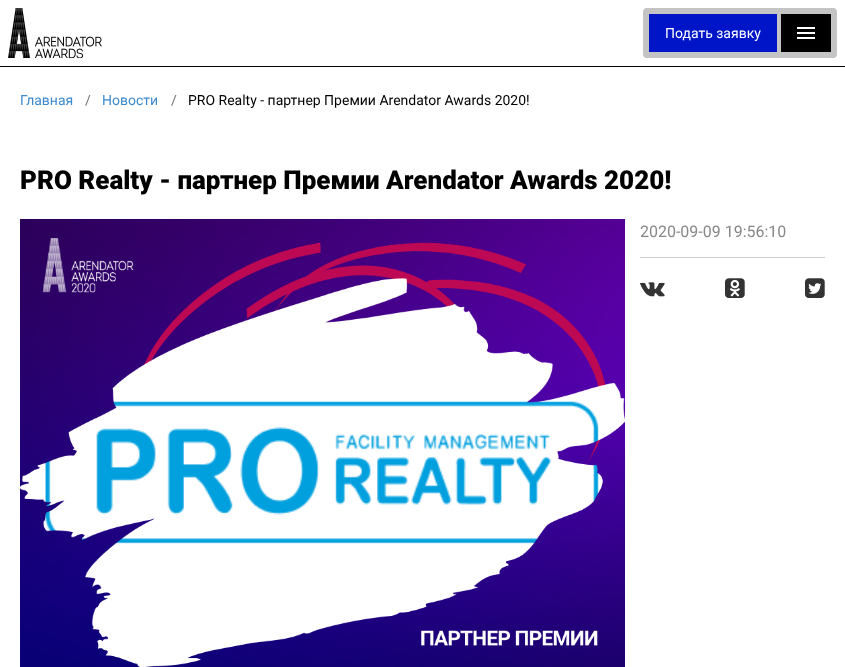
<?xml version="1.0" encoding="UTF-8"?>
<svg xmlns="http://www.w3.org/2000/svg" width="845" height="667">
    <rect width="100%" height="100%" fill="#FFFFFF"/>
    <rect x="0" y="66" width="845" height="1" fill="#000000"/>
    <image x="8" y="8" width="94" height="50" href="img_01.png"/>
    <rect x="643" y="8" width="194" height="50" rx="4" fill="#C4C4C4"/>
    <rect x="649" y="14" width="128" height="38" fill="#0015C8"/>
    <text x="665" y="38" font-family="Roboto" font-size="14" fill="#FFFFFF">Подать заявку</text>
    <rect x="781" y="14" width="50" height="38" fill="#000000"/>
    <rect x="797" y="27" width="18" height="2" fill="#FFFFFF"/>
    <rect x="797" y="32" width="18" height="2" fill="#FFFFFF"/>
    <rect x="797" y="37" width="18" height="2" fill="#FFFFFF"/>
    <text x="20" y="105" font-family="Roboto" font-size="14" fill="#3D8BCF">Главная</text>
    <text x="85" y="105" font-family="Roboto" font-size="14" fill="#707070">/</text>
    <text x="102" y="105" font-family="Roboto" font-size="14" fill="#3D8BCF">Новости</text>
    <text x="171" y="105" font-family="Roboto" font-size="14" fill="#707070">/</text>
    <text x="188" y="105" font-family="Roboto" font-size="14" fill="#000000">PRO Realty - партнер Премии Arendator Awards 2020!</text>
    <text x="20" y="189" font-family="Roboto" font-size="26" font-weight="900" fill="#000000">PRO Realty - партнер Премии Arendator Awards 2020!</text>
    <image x="20" y="219" width="605" height="448" href="img_02.png"/>
    <text x="640" y="237" font-family="Roboto" font-size="16" fill="#888888">2020-09-09 19:56:10</text>
    <rect x="640" y="257" width="185" height="1" fill="#CCCCCC"/>
    <image x="640" y="282" width="25" height="15" href="img_03.png"/>
    <image x="725" y="278" width="20" height="20" href="img_04.png"/>
    <image x="805" y="278" width="20" height="20" href="img_05.png"/>
</svg>
